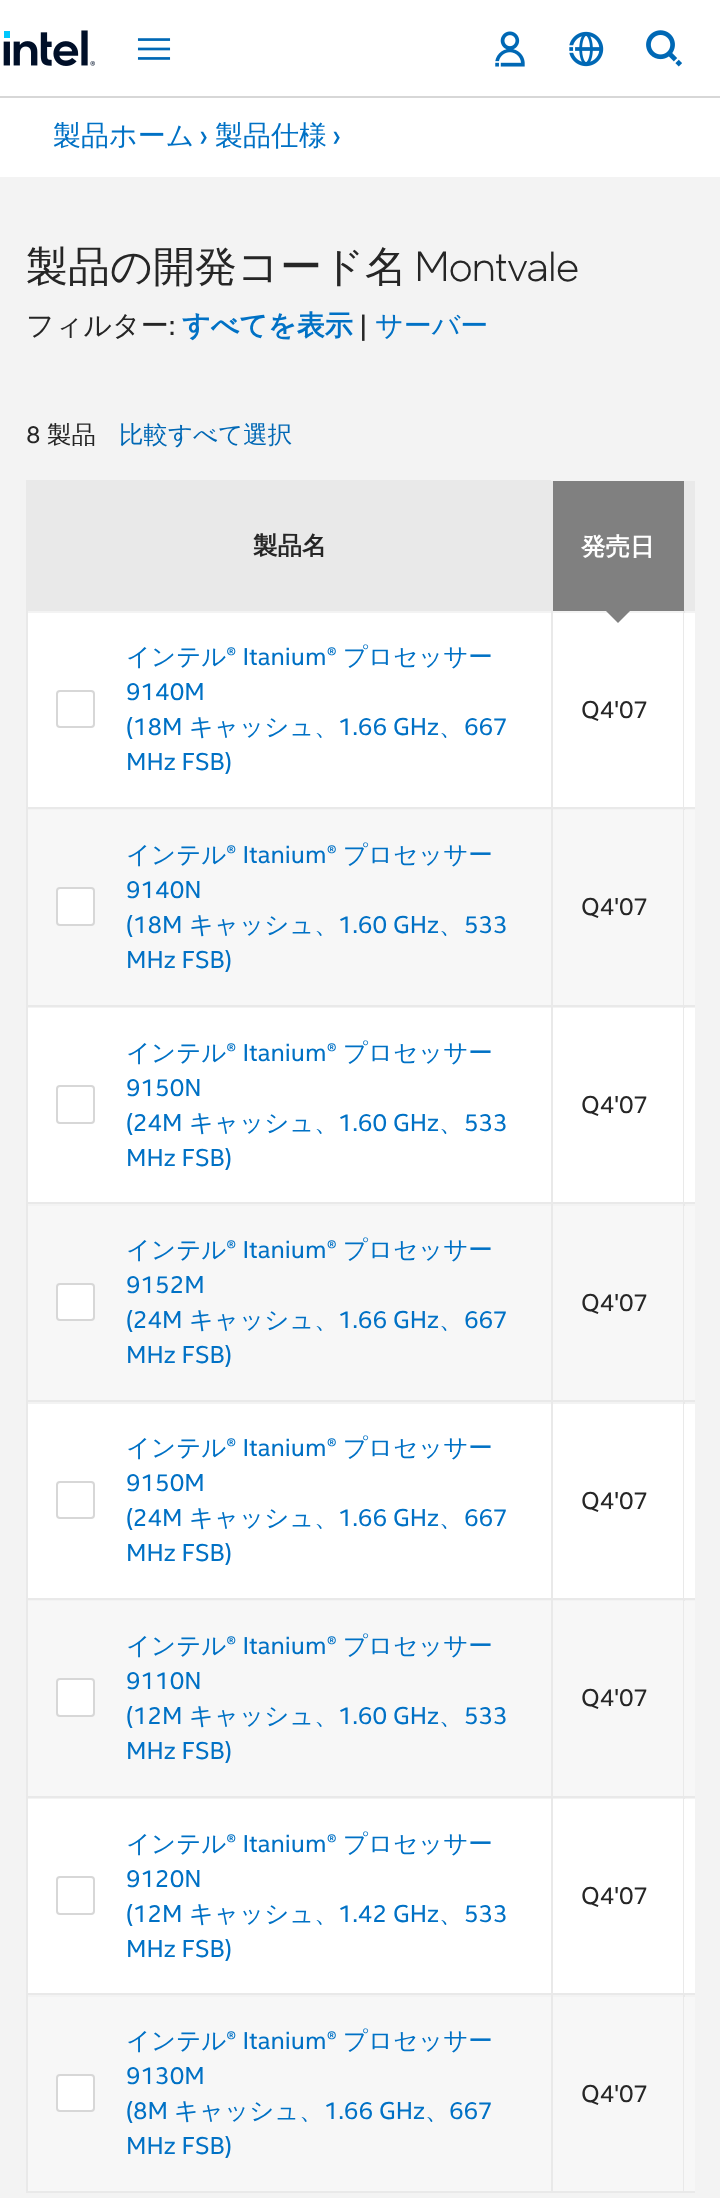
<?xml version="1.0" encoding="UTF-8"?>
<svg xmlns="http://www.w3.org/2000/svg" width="720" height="2198">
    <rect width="100%" height="100%" fill="#FFFFFF"/>
    <rect x="0" y="96" width="720" height="2" fill="#D7D7D7"/>
    <image x="3" y="30" width="92" height="36" href="img_01.png"/>
    <image x="137" y="38" width="34" height="22" href="img_02.png"/>
    <image x="495" y="31" width="30" height="36" href="img_03.png"/>
    <image x="569" y="31" width="35" height="36" href="img_04.png"/>
    <image x="646" y="30" width="36" height="37" href="img_05.png"/>
    <rect x="0" y="177" width="720" height="2021" fill="#F3F3F3"/>
    <text x="53" y="145" font-family="WenQuanYi Zen Hei" font-size="28" font-weight="500" fill="#0071C5">製品ホーム</text>
    <text x="199" y="145" font-family="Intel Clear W" font-size="28" fill="#0071C5">›</text>
    <text x="215" y="145" font-family="WenQuanYi Zen Hei" font-size="28" font-weight="500" fill="#0071C5">製品仕様</text>
    <text x="332" y="145" font-family="Intel Clear W" font-size="28" fill="#0071C5">›</text>
    <text x="26" y="281" font-family="WenQuanYi Zen Hei" font-size="42" font-weight="500" fill="#262626">製品の開発コード名</text>
    <text x="415" y="281" font-family="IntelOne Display" font-size="42" font-weight="300" fill="#262626">Montvale</text>
    <text x="26" y="335" font-family="WenQuanYi Zen Hei" font-size="28" font-weight="500" fill="#262626">フィルター</text>
    <text x="169" y="335" font-family="Intel Clear W" font-size="28" fill="#262626">:</text>
    <text x="182" y="335" font-family="WenQuanYi Zen Hei" font-size="28" font-weight="700" fill="#0071C5">すべてを表示</text>
    <text x="359" y="335" font-family="Intel Clear W" font-size="28" fill="#262626">|</text>
    <text x="375" y="335" font-family="WenQuanYi Zen Hei" font-size="28" font-weight="500" fill="#0071C5">サーバー</text>
    <text x="26" y="443" font-family="Intel Clear W" font-size="24.5" fill="#262626">8</text>
    <text x="47" y="443" font-family="WenQuanYi Zen Hei" font-size="24.5" font-weight="500" fill="#262626">製品</text>
    <text x="119" y="443" font-family="WenQuanYi Zen Hei" font-size="24.5" font-weight="500" fill="#0068B5">比較すべて選択</text>
    <rect x="26" y="480" width="525" height="1" fill="#E9E9E9"/>
    <rect x="26" y="2191" width="669" height="2" fill="#E9E9E9"/>
    <rect x="26" y="480" width="2" height="1713" fill="#E9E9E9"/>
    <rect x="26" y="807" width="669" height="2" fill="#E9E9E9"/>
    <rect x="26" y="1005" width="669" height="2" fill="#E9E9E9"/>
    <rect x="26" y="1202" width="669" height="2" fill="#E9E9E9"/>
    <rect x="26" y="1400" width="669" height="2" fill="#E9E9E9"/>
    <rect x="26" y="1598" width="669" height="2" fill="#E9E9E9"/>
    <rect x="26" y="1796" width="669" height="2" fill="#E9E9E9"/>
    <rect x="26" y="1993" width="669" height="2" fill="#E9E9E9"/>
    <rect x="551" y="1993" width="2" height="200" fill="#E9E9E9"/>
    <rect x="551" y="1796" width="2" height="199" fill="#E9E9E9"/>
    <rect x="551" y="1598" width="2" height="199" fill="#E9E9E9"/>
    <rect x="551" y="1400" width="2" height="200" fill="#E9E9E9"/>
    <rect x="551" y="1202" width="2" height="200" fill="#E9E9E9"/>
    <rect x="551" y="1005" width="2" height="199" fill="#E9E9E9"/>
    <rect x="551" y="609" width="2" height="397" fill="#E9E9E9"/>
    <rect x="28" y="481" width="525" height="130" fill="#E9E9E9"/>
    <text x="253" y="554" font-family="WenQuanYi Zen Hei" font-size="24.5" font-weight="700" fill="#262626">製品名</text>
    <rect x="683" y="1993" width="2" height="200" fill="#E9E9E9"/>
    <rect x="683" y="1796" width="2" height="199" fill="#E9E9E9"/>
    <rect x="683" y="1598" width="2" height="199" fill="#E9E9E9"/>
    <rect x="683" y="1400" width="2" height="200" fill="#E9E9E9"/>
    <rect x="683" y="1202" width="2" height="200" fill="#E9E9E9"/>
    <rect x="683" y="1005" width="2" height="199" fill="#E9E9E9"/>
    <rect x="683" y="609" width="2" height="397" fill="#E9E9E9"/>
    <rect x="553" y="481" width="131" height="130" fill="#808080"/>
    <text x="581" y="555" font-family="WenQuanYi Zen Hei" font-size="24.5" font-weight="700" fill="#FFFFFF">発売日</text>
    <rect x="553" y="613" width="130" height="194" fill="#FFFFFF"/>
    <path d="M 604 609 H 632 L 618 623 Z" fill="#808080"/>
    <rect x="684" y="481" width="11" height="130" fill="#E9E9E9"/>
    <rect x="28" y="613" width="523" height="194" fill="#FFFFFF"/>
    <text x="126" y="665" font-family="WenQuanYi Zen Hei" font-size="24.5" font-weight="500" fill="#0071C5">インテル</text>
    <text x="226" y="665" font-family="Intel Clear W" font-size="24.5" fill="#0071C5">® Itanium®</text>
    <text x="343" y="665" font-family="WenQuanYi Zen Hei" font-size="24.5" font-weight="500" fill="#0071C5">プロセッサー</text>
    <rect x="57" y="691" width="37" height="36" rx="3" fill="none" stroke="#D7D7D7" stroke-width="2"/>
    <text font-family="Intel Clear W" font-size="24.5" fill="#0071C5">
        <tspan x="126" y="700">9140M</tspan>
        <tspan x="126" y="735">(18M</tspan>
    </text>
    <text x="189" y="735" font-family="WenQuanYi Zen Hei" font-size="24.5" font-weight="500" fill="#0071C5">キャッシュ、</text>
    <text x="338" y="735" font-family="Intel Clear W" font-size="24.5" fill="#0071C5">1.66 GHz</text>
    <text x="439" y="735" font-family="WenQuanYi Zen Hei" font-size="24.5" font-weight="500" fill="#0071C5">、</text>
    <text x="464" y="735" font-family="Intel Clear W" font-size="24.5" fill="#0071C5">667</text>
    <text x="126" y="770" font-family="Intel Clear W" font-size="24.5" fill="#0071C5">MHz FSB)</text>
    <text x="581" y="718" font-family="Intel Clear W" font-size="24.5" fill="#262626">Q4'07</text>
    <rect x="684" y="613" width="11" height="194" fill="#FFFFFF"/>
    <rect x="684" y="810" width="11" height="195" fill="#F7F7F7"/>
    <rect x="28" y="810" width="523" height="195" fill="#F7F7F7"/>
    <text x="126" y="863" font-family="WenQuanYi Zen Hei" font-size="24.5" font-weight="500" fill="#0071C5">インテル</text>
    <text x="226" y="863" font-family="Intel Clear W" font-size="24.5" fill="#0071C5">® Itanium®</text>
    <text x="343" y="863" font-family="WenQuanYi Zen Hei" font-size="24.5" font-weight="500" fill="#0071C5">プロセッサー</text>
    <rect x="57" y="888" width="37" height="37" rx="3" fill="#FFFFFF" stroke="#D7D7D7" stroke-width="2"/>
    <text font-family="Intel Clear W" font-size="24.5" fill="#0071C5">
        <tspan x="126" y="898">9140N</tspan>
        <tspan x="126" y="933">(18M</tspan>
    </text>
    <text x="189" y="933" font-family="WenQuanYi Zen Hei" font-size="24.5" font-weight="500" fill="#0071C5">キャッシュ、</text>
    <text x="338" y="933" font-family="Intel Clear W" font-size="24.5" fill="#0071C5">1.60 GHz</text>
    <text x="439" y="933" font-family="WenQuanYi Zen Hei" font-size="24.5" font-weight="500" fill="#0071C5">、</text>
    <text x="464" y="933" font-family="Intel Clear W" font-size="24.5" fill="#0071C5">533</text>
    <text x="126" y="968" font-family="Intel Clear W" font-size="24.5" fill="#0071C5">MHz FSB)</text>
    <rect x="553" y="810" width="130" height="195" fill="#F7F7F7"/>
    <text x="581" y="915" font-family="Intel Clear W" font-size="24.5" fill="#262626">Q4'07</text>
    <rect x="684" y="1008" width="11" height="194" fill="#FFFFFF"/>
    <rect x="28" y="1008" width="523" height="194" fill="#FFFFFF"/>
    <text x="126" y="1061" font-family="WenQuanYi Zen Hei" font-size="24.5" font-weight="500" fill="#0071C5">インテル</text>
    <text x="226" y="1061" font-family="Intel Clear W" font-size="24.5" fill="#0071C5">® Itanium®</text>
    <text x="343" y="1061" font-family="WenQuanYi Zen Hei" font-size="24.5" font-weight="500" fill="#0071C5">プロセッサー</text>
    <rect x="57" y="1086" width="37" height="37" rx="3" fill="none" stroke="#D7D7D7" stroke-width="2"/>
    <text font-family="Intel Clear W" font-size="24.5" fill="#0071C5">
        <tspan x="126" y="1096">9150N</tspan>
        <tspan x="126" y="1131">(24M</tspan>
    </text>
    <text x="189" y="1131" font-family="WenQuanYi Zen Hei" font-size="24.5" font-weight="500" fill="#0071C5">キャッシュ、</text>
    <text x="338" y="1131" font-family="Intel Clear W" font-size="24.5" fill="#0071C5">1.60 GHz</text>
    <text x="439" y="1131" font-family="WenQuanYi Zen Hei" font-size="24.5" font-weight="500" fill="#0071C5">、</text>
    <text x="464" y="1131" font-family="Intel Clear W" font-size="24.5" fill="#0071C5">533</text>
    <text x="126" y="1166" font-family="Intel Clear W" font-size="24.5" fill="#0071C5">MHz FSB)</text>
    <rect x="553" y="1008" width="130" height="194" fill="#FFFFFF"/>
    <text x="581" y="1113" font-family="Intel Clear W" font-size="24.5" fill="#262626">Q4'07</text>
    <rect x="684" y="1206" width="11" height="194" fill="#F7F7F7"/>
    <rect x="28" y="1206" width="523" height="194" fill="#F7F7F7"/>
    <text x="126" y="1258" font-family="WenQuanYi Zen Hei" font-size="24.5" font-weight="500" fill="#0071C5">インテル</text>
    <text x="226" y="1258" font-family="Intel Clear W" font-size="24.5" fill="#0071C5">® Itanium®</text>
    <text x="343" y="1258" font-family="WenQuanYi Zen Hei" font-size="24.5" font-weight="500" fill="#0071C5">プロセッサー</text>
    <rect x="57" y="1284" width="37" height="36" rx="3" fill="#FFFFFF" stroke="#D7D7D7" stroke-width="2"/>
    <text font-family="Intel Clear W" font-size="24.5" fill="#0071C5">
        <tspan x="126" y="1293">9152M</tspan>
        <tspan x="126" y="1328">(24M</tspan>
    </text>
    <text x="189" y="1328" font-family="WenQuanYi Zen Hei" font-size="24.5" font-weight="500" fill="#0071C5">キャッシュ、</text>
    <text x="338" y="1328" font-family="Intel Clear W" font-size="24.5" fill="#0071C5">1.66 GHz</text>
    <text x="439" y="1328" font-family="WenQuanYi Zen Hei" font-size="24.5" font-weight="500" fill="#0071C5">、</text>
    <text x="464" y="1328" font-family="Intel Clear W" font-size="24.5" fill="#0071C5">667</text>
    <text x="126" y="1363" font-family="Intel Clear W" font-size="24.5" fill="#0071C5">MHz FSB)</text>
    <rect x="553" y="1206" width="130" height="194" fill="#F7F7F7"/>
    <text x="581" y="1311" font-family="Intel Clear W" font-size="24.5" fill="#262626">Q4'07</text>
    <rect x="684" y="1404" width="11" height="194" fill="#FFFFFF"/>
    <rect x="28" y="1404" width="523" height="194" fill="#FFFFFF"/>
    <text x="126" y="1456" font-family="WenQuanYi Zen Hei" font-size="24.5" font-weight="500" fill="#0071C5">インテル</text>
    <text x="226" y="1456" font-family="Intel Clear W" font-size="24.5" fill="#0071C5">® Itanium®</text>
    <text x="343" y="1456" font-family="WenQuanYi Zen Hei" font-size="24.5" font-weight="500" fill="#0071C5">プロセッサー</text>
    <rect x="57" y="1482" width="37" height="36" rx="3" fill="none" stroke="#D7D7D7" stroke-width="2"/>
    <text font-family="Intel Clear W" font-size="24.5" fill="#0071C5">
        <tspan x="126" y="1491">9150M</tspan>
        <tspan x="126" y="1526">(24M</tspan>
    </text>
    <text x="189" y="1526" font-family="WenQuanYi Zen Hei" font-size="24.5" font-weight="500" fill="#0071C5">キャッシュ、</text>
    <text x="338" y="1526" font-family="Intel Clear W" font-size="24.5" fill="#0071C5">1.66 GHz</text>
    <text x="439" y="1526" font-family="WenQuanYi Zen Hei" font-size="24.5" font-weight="500" fill="#0071C5">、</text>
    <text x="464" y="1526" font-family="Intel Clear W" font-size="24.5" fill="#0071C5">667</text>
    <text x="126" y="1561" font-family="Intel Clear W" font-size="24.5" fill="#0071C5">MHz FSB)</text>
    <rect x="553" y="1404" width="130" height="194" fill="#FFFFFF"/>
    <text x="581" y="1509" font-family="Intel Clear W" font-size="24.5" fill="#262626">Q4'07</text>
    <rect x="684" y="1601" width="11" height="195" fill="#F7F7F7"/>
    <rect x="28" y="1601" width="523" height="195" fill="#F7F7F7"/>
    <text x="126" y="1654" font-family="WenQuanYi Zen Hei" font-size="24.5" font-weight="500" fill="#0071C5">インテル</text>
    <text x="226" y="1654" font-family="Intel Clear W" font-size="24.5" fill="#0071C5">® Itanium®</text>
    <text x="343" y="1654" font-family="WenQuanYi Zen Hei" font-size="24.5" font-weight="500" fill="#0071C5">プロセッサー</text>
    <rect x="57" y="1679" width="37" height="37" rx="3" fill="#FFFFFF" stroke="#D7D7D7" stroke-width="2"/>
    <text font-family="Intel Clear W" font-size="24.5" fill="#0071C5">
        <tspan x="126" y="1689">9110N</tspan>
        <tspan x="126" y="1724">(12M</tspan>
    </text>
    <text x="189" y="1724" font-family="WenQuanYi Zen Hei" font-size="24.5" font-weight="500" fill="#0071C5">キャッシュ、</text>
    <text x="338" y="1724" font-family="Intel Clear W" font-size="24.5" fill="#0071C5">1.60 GHz</text>
    <text x="439" y="1724" font-family="WenQuanYi Zen Hei" font-size="24.5" font-weight="500" fill="#0071C5">、</text>
    <text x="464" y="1724" font-family="Intel Clear W" font-size="24.5" fill="#0071C5">533</text>
    <text x="126" y="1759" font-family="Intel Clear W" font-size="24.5" fill="#0071C5">MHz FSB)</text>
    <rect x="553" y="1601" width="130" height="195" fill="#F7F7F7"/>
    <text x="581" y="1706" font-family="Intel Clear W" font-size="24.5" fill="#262626">Q4'07</text>
    <rect x="684" y="1799" width="11" height="194" fill="#FFFFFF"/>
    <rect x="28" y="1799" width="523" height="194" fill="#FFFFFF"/>
    <text x="126" y="1852" font-family="WenQuanYi Zen Hei" font-size="24.5" font-weight="500" fill="#0071C5">インテル</text>
    <text x="226" y="1852" font-family="Intel Clear W" font-size="24.5" fill="#0071C5">® Itanium®</text>
    <text x="343" y="1852" font-family="WenQuanYi Zen Hei" font-size="24.5" font-weight="500" fill="#0071C5">プロセッサー</text>
    <rect x="57" y="1877" width="37" height="37" rx="3" fill="none" stroke="#D7D7D7" stroke-width="2"/>
    <text font-family="Intel Clear W" font-size="24.5" fill="#0071C5">
        <tspan x="126" y="1887">9120N</tspan>
        <tspan x="126" y="1922">(12M</tspan>
    </text>
    <text x="189" y="1922" font-family="WenQuanYi Zen Hei" font-size="24.5" font-weight="500" fill="#0071C5">キャッシュ、</text>
    <text x="338" y="1922" font-family="Intel Clear W" font-size="24.5" fill="#0071C5">1.42 GHz</text>
    <text x="439" y="1922" font-family="WenQuanYi Zen Hei" font-size="24.5" font-weight="500" fill="#0071C5">、</text>
    <text x="464" y="1922" font-family="Intel Clear W" font-size="24.5" fill="#0071C5">533</text>
    <text x="126" y="1957" font-family="Intel Clear W" font-size="24.5" fill="#0071C5">MHz FSB)</text>
    <rect x="553" y="1799" width="130" height="194" fill="#FFFFFF"/>
    <text x="581" y="1904" font-family="Intel Clear W" font-size="24.5" fill="#262626">Q4'07</text>
    <rect x="684" y="1997" width="11" height="194" fill="#F7F7F7"/>
    <rect x="28" y="1997" width="523" height="194" fill="#F7F7F7"/>
    <text x="126" y="2049" font-family="WenQuanYi Zen Hei" font-size="24.5" font-weight="500" fill="#0071C5">インテル</text>
    <text x="226" y="2049" font-family="Intel Clear W" font-size="24.5" fill="#0071C5">® Itanium®</text>
    <text x="343" y="2049" font-family="WenQuanYi Zen Hei" font-size="24.5" font-weight="500" fill="#0071C5">プロセッサー</text>
    <rect x="57" y="2075" width="37" height="36" rx="3" fill="#FFFFFF" stroke="#D7D7D7" stroke-width="2"/>
    <text font-family="Intel Clear W" font-size="24.5" fill="#0071C5">
        <tspan x="126" y="2084">9130M</tspan>
        <tspan x="126" y="2119">(8M</tspan>
    </text>
    <text x="174" y="2119" font-family="WenQuanYi Zen Hei" font-size="24.5" font-weight="500" fill="#0071C5">キャッシュ、</text>
    <text x="324" y="2119" font-family="Intel Clear W" font-size="24.5" fill="#0071C5">1.66 GHz</text>
    <text x="425" y="2119" font-family="WenQuanYi Zen Hei" font-size="24.5" font-weight="500" fill="#0071C5">、</text>
    <text x="449" y="2119" font-family="Intel Clear W" font-size="24.5" fill="#0071C5">667</text>
    <text x="126" y="2154" font-family="Intel Clear W" font-size="24.5" fill="#0071C5">MHz FSB)</text>
    <rect x="553" y="1997" width="130" height="194" fill="#F7F7F7"/>
    <text x="581" y="2102" font-family="Intel Clear W" font-size="24.5" fill="#262626">Q4'07</text>
</svg>
